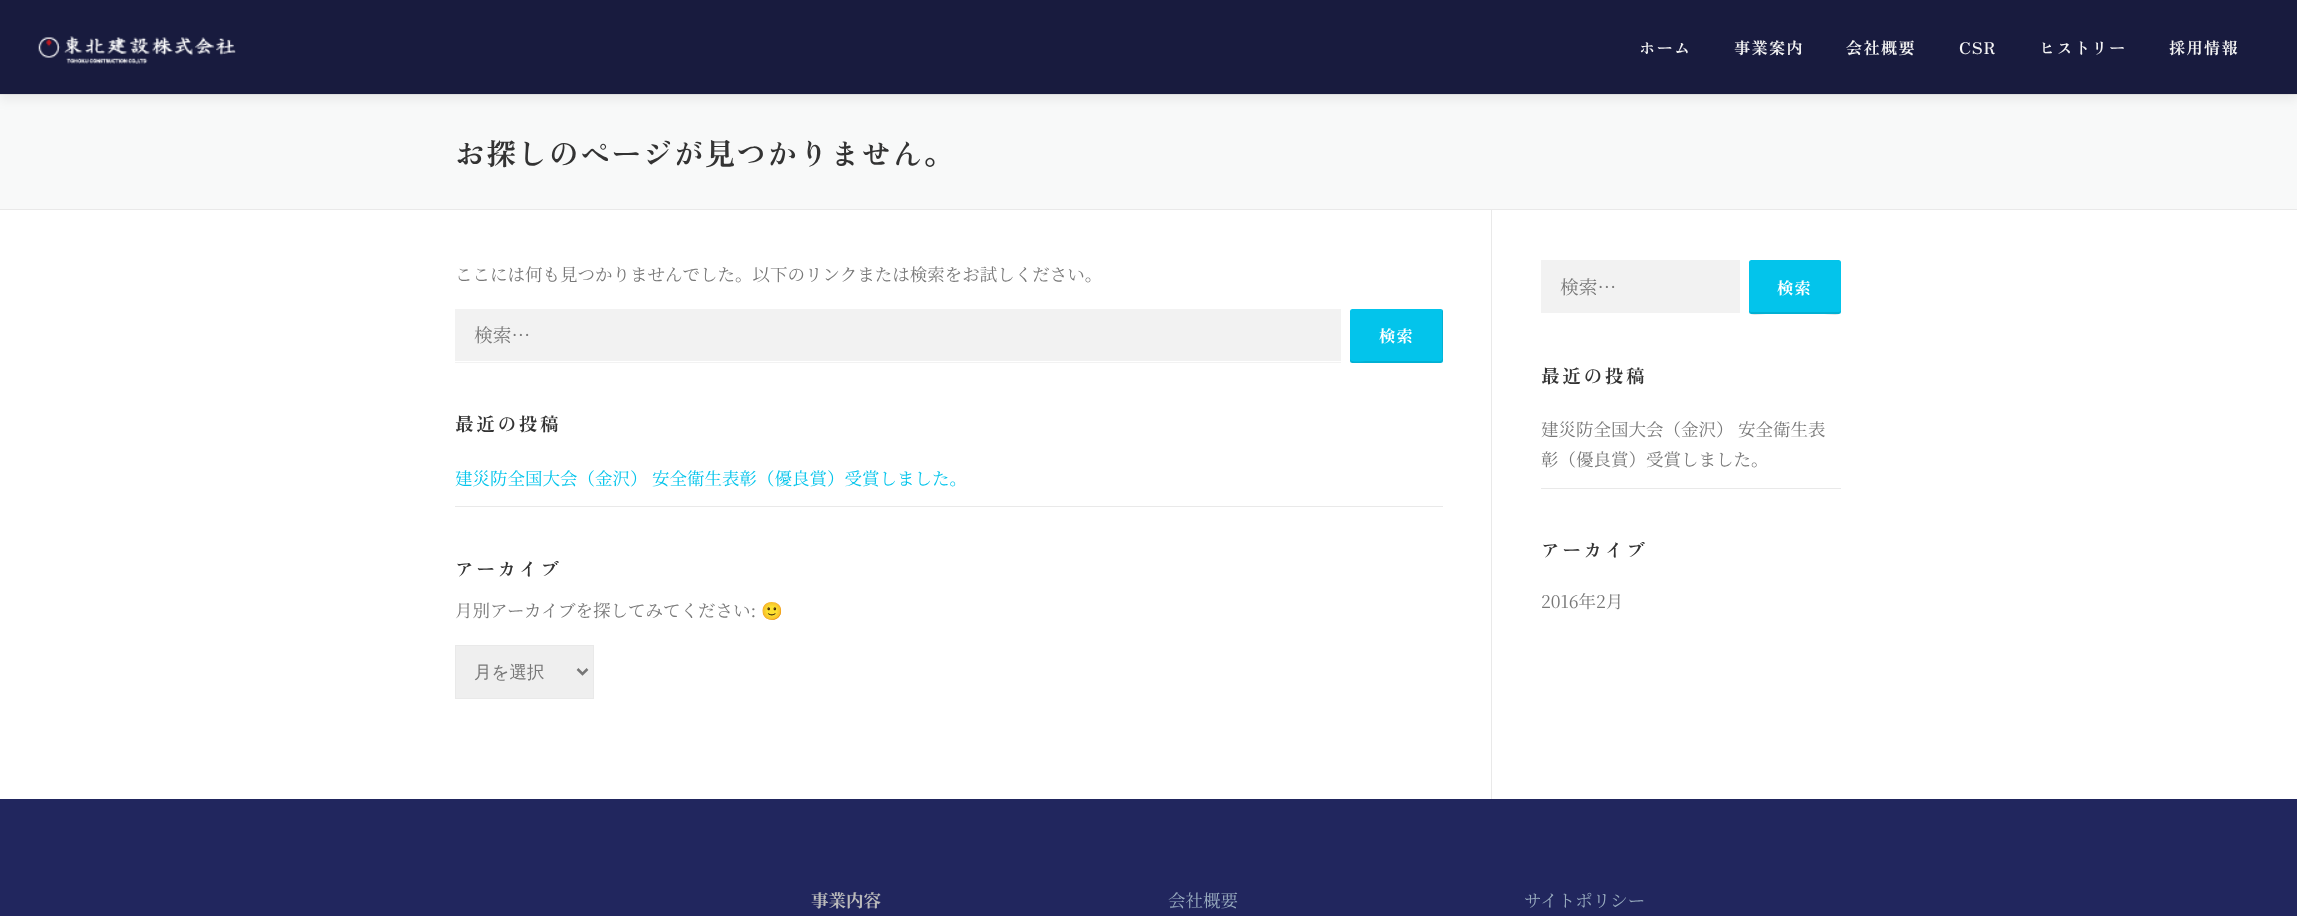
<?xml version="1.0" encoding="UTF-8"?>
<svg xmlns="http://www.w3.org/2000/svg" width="2297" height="916">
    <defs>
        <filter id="blur1" x="-50%" y="-200%" width="200%" height="500%"><feGaussianBlur stdDeviation="6"/></filter>
    </defs>
    <rect width="100%" height="100%" fill="#FFFFFF"/>
    <rect x="0" y="95" width="2297" height="114" fill="#F8F9F9"/>
    <rect x="0" y="94" width="2297" height="1" fill="#E9E9E9"/>
    <rect x="0" y="6" width="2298" height="94" fill="#323232" fill-opacity="0.06" filter="url(#blur1)"/>
    <rect x="0" y="0" width="2297" height="94" fill="#181B3E"/>
    <image x="38" y="36" width="198" height="28" href="img_01.png"/>
    <text x="1639" y="54" font-family="Zen Old Mincho" font-size="16.25" font-weight="700" letter-spacing="1.25" fill="#F4F4F4">ホーム</text>
    <text x="1734" y="54" font-family="Zen Old Mincho" font-size="16.25" font-weight="700" letter-spacing="1.25" fill="#F4F4F4">事業案内</text>
    <text x="1846" y="54" font-family="Zen Old Mincho" font-size="16.25" font-weight="700" letter-spacing="1.25" fill="#F4F4F4">会社概要</text>
    <text x="1959" y="54" font-family="Zen Old Mincho" font-size="16.25" font-weight="700" letter-spacing="1.25" fill="#F4F4F4">CSR</text>
    <text x="2039" y="54" font-family="Zen Old Mincho" font-size="16.25" font-weight="700" letter-spacing="1.25" fill="#F4F4F4">ヒストリー</text>
    <text x="2169" y="54" font-family="Zen Old Mincho" font-size="16.25" font-weight="700" letter-spacing="1.25" fill="#F4F4F4">採用情報</text>
    <rect x="0" y="209" width="2297" height="1" fill="#E9E9E9"/>
    <text x="455" y="165" font-family="Zen Old Mincho" font-size="30" font-weight="700" letter-spacing="1.25" fill="#333333">お探しのページが見つかりません。</text>
    <rect x="1491" y="210" width="1" height="589" fill="#E9E9E9"/>
    <text x="455" y="281" font-family="Noto Serif JP" font-size="17.5" fill="#777777">ここには何も見つかりませんでした。以下のリンクまたは検索をお試しください。</text>
    <rect x="455" y="309" width="886" height="54" fill="#F2F2F2"/>
    <rect x="455" y="361" width="886" height="1" fill="#FFFFFF"/>
    <text x="474" y="342" font-family="Noto Serif JP" font-size="18.75" fill="#777777">検索…</text>
    <rect x="1350" y="309" width="93" height="54" rx="2.5" fill="#03C4EB"/>
    <path d="M 1350 359 V 360 C 1350 362 1351 363 1352 363 H 1440 C 1442 363 1443 362 1443 360 V 312 C 1443 311 1443 310 1442 309 V 343 C 1442 365 1447 361 1425 361 H 1367 C 1364 361 1350 363 1350 359 Z" fill="#000000" fill-opacity="0.1"/>
    <text x="1379" y="342" font-family="Noto Serif JP" font-size="16.25" font-weight="700" letter-spacing="1.25" fill="#FFFFFF">検索</text>
    <text x="455" y="431" font-family="Zen Old Mincho" font-size="18.75" font-weight="700" letter-spacing="2.5" fill="#333333">最近の投稿</text>
    <rect x="455" y="506" width="988" height="1" fill="#E9E9E9"/>
    <text x="455" y="485" font-family="Noto Serif JP" font-size="17.5" fill="#03C4EB">建災防全国大会（金沢） 安全衛生表彰（優良賞）受賞しました。</text>
    <text x="455" y="576" font-family="Zen Old Mincho" font-size="18.75" font-weight="700" letter-spacing="2.5" fill="#333333">アーカイブ</text>
    <text x="455" y="617" font-family="Noto Serif JP" font-size="17.5" fill="#777777">月別アーカイブを探してみてください:</text>
    <text x="761" y="617" font-family="Noto Color Emoji" font-size="17.5" fill="#777777">🙂</text>
    <rect x="455.5" y="645.5" width="138" height="53" fill="#EFEFEF" stroke="#E9E9E9"/>
    <path d="M 577.5 669 L 582.5 674 L 587.5 669" fill="none" stroke="#777777" stroke-width="2.5"/>
    <text x="474" y="678" font-family="WenQuanYi Zen Hei" font-size="17.5" font-weight="500" fill="#777777">月を選択</text>
    <rect x="1541" y="260" width="199" height="53" fill="#F2F2F2"/>
    <text x="1560" y="294" font-family="Noto Serif JP" font-size="18.75" fill="#777777">検索…</text>
    <rect x="1749" y="260" width="92" height="54" rx="2.5" fill="#03C4EB"/>
    <path d="M 1749 310 C 1749 318 1761 314 1766 314 H 1824 C 1829 314 1841 318 1841 310 V 311 L 1839 312 H 1751 C 1750 312 1749 311 1749 310 Z" fill="#000000" fill-opacity="0.1"/>
    <text x="1777" y="294" font-family="Noto Serif JP" font-size="16.25" font-weight="700" letter-spacing="1.25" fill="#FFFFFF">検索</text>
    <text x="1541" y="383" font-family="Zen Old Mincho" font-size="18.75" font-weight="700" letter-spacing="2.5" fill="#333333">最近の投稿</text>
    <rect x="1541" y="488" width="300" height="1" fill="#E9E9E9"/>
    <text font-family="Noto Serif JP" font-size="17.5" fill="#777777">
        <tspan x="1541" y="436">建災防全国大会（金沢） 安全衛生表</tspan>
        <tspan x="1541" y="466">彰（優良賞）受賞しました。</tspan>
    </text>
    <text x="1541" y="557" font-family="Zen Old Mincho" font-size="18.75" font-weight="700" letter-spacing="2.5" fill="#333333">アーカイブ</text>
    <text x="1541" y="608" font-family="Noto Serif JP" font-size="17.5" fill="#777777">2016年2月</text>
    <rect x="0" y="799" width="2297" height="117" fill="#21265E"/>
    <text x="811" y="907" font-family="Noto Serif JP" font-size="17.5" font-weight="700" fill="#BBBBBB">事業内容</text>
    <text x="1168" y="907" font-family="Noto Serif JP" font-size="17.5" fill="#99ACBF">会社概要</text>
    <text x="1524" y="907" font-family="Noto Serif JP" font-size="17.5" fill="#99ACBF">サイトポリシー</text>
</svg>
